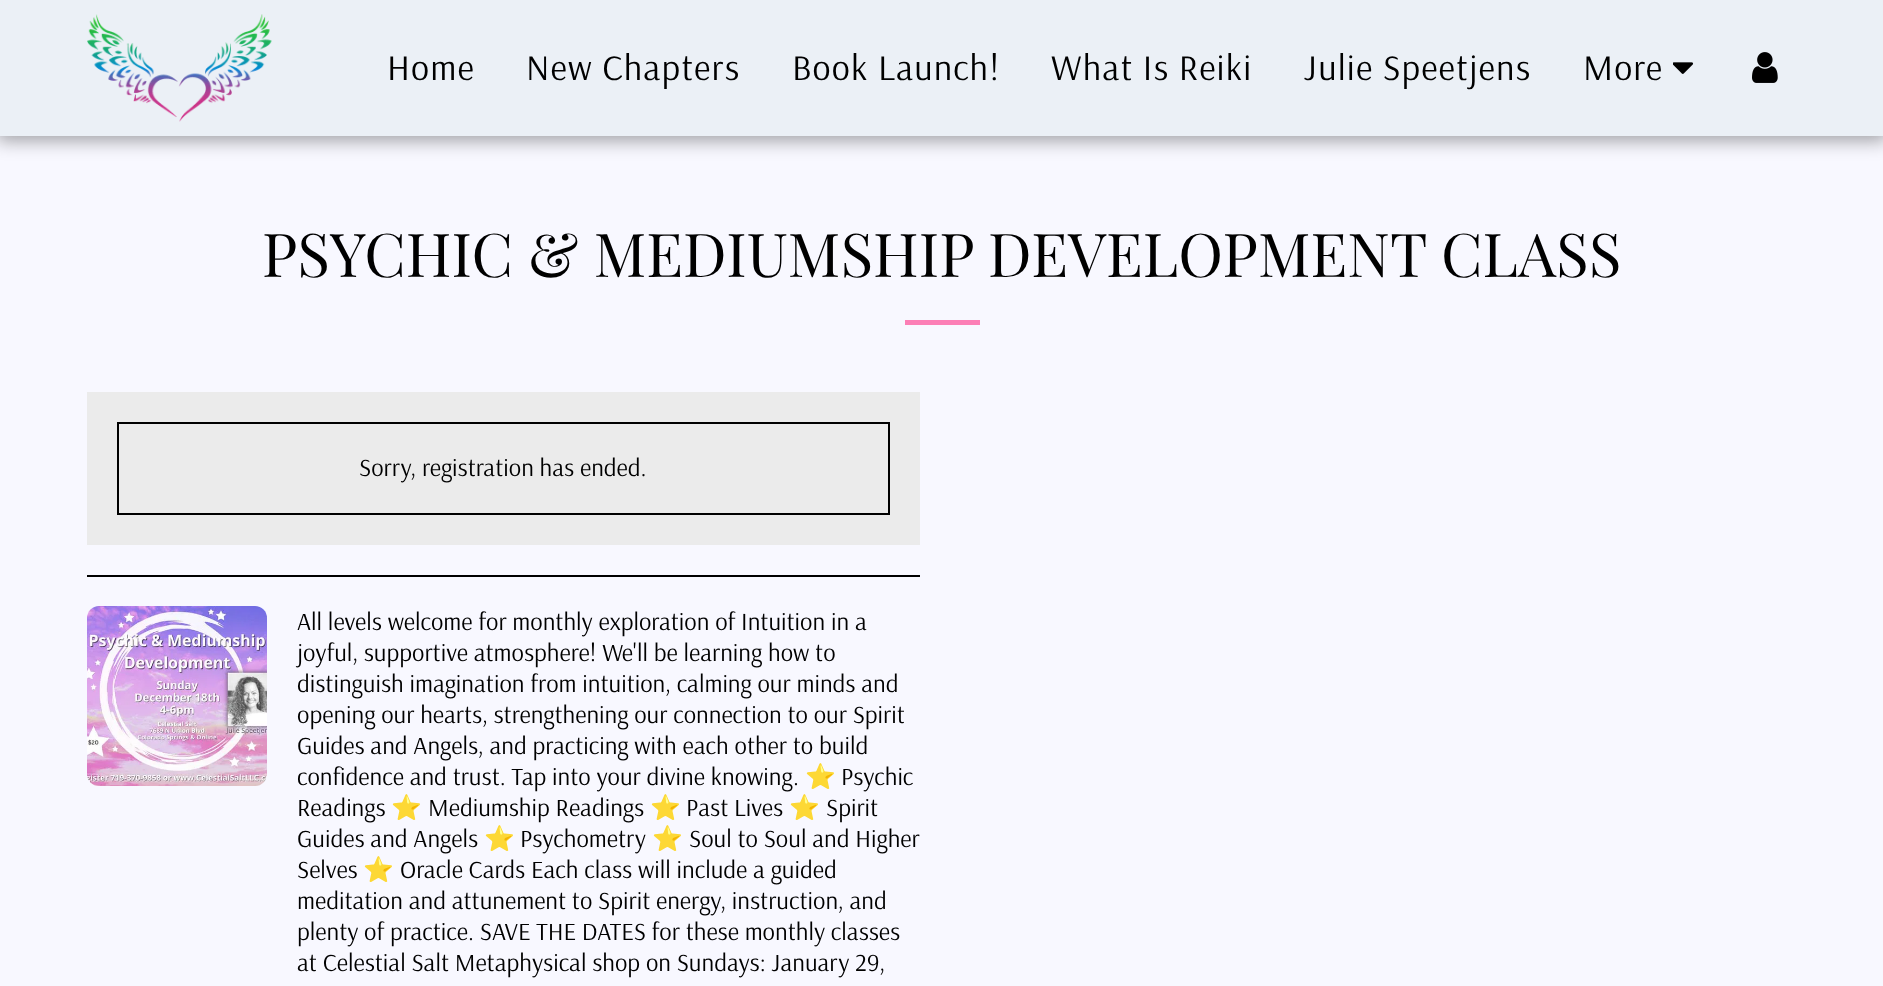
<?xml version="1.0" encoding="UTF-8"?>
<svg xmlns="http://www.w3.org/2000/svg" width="1883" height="986">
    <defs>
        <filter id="blur1" x="-50%" y="-200%" width="200%" height="500%"><feGaussianBlur stdDeviation="9"/></filter>
    </defs>
    <rect width="100%" height="100%" fill="#F8F8FF"/>
    <rect x="-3" y="0" width="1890" height="141" fill="#000000" fill-opacity="0.35" filter="url(#blur1)"/>
    <rect x="0" y="0" width="1883" height="136" fill="#EBF0F6"/>
    <image x="87" y="14" width="185" height="108" href="img_01.png"/>
    <text x="387" y="80" font-family="Arsenal" font-size="36" letter-spacing="1.1" fill="#000000">Home</text>
    <text x="526" y="80" font-family="Arsenal" font-size="36" letter-spacing="1.1" fill="#000000">New Chapters</text>
    <text x="792" y="80" font-family="Arsenal" font-size="36" letter-spacing="1.1" fill="#000000">Book Launch!</text>
    <text x="1051" y="80" font-family="Arsenal" font-size="36" letter-spacing="1.1" fill="#000000">What Is Reiki</text>
    <text x="1304" y="80" font-family="Arsenal" font-size="36" letter-spacing="1.1" fill="#000000">Julie Speetjens</text>
    <text x="1583" y="80" font-family="Arsenal" font-size="36" letter-spacing="1.1" fill="#000000">More</text>
    <image x="1673" y="62" width="21" height="12" href="img_02.png"/>
    <image x="1752" y="52" width="26" height="31" href="img_03.png"/>
    <text x="262" y="277" font-family="Playfair Display" font-size="60.4" fill="#000000">PSYCHIC &amp; MEDIUMSHIP DEVELOPMENT CLASS</text>
    <rect x="905" y="320" width="75" height="5" fill="#FC7FB6"/>
    <rect x="87" y="392" width="833" height="153" fill="#EBEBEB"/>
    <rect x="118" y="423" width="771" height="91" fill="none" stroke="#000000" stroke-width="2"/>
    <text x="359" y="476" font-family="Arsenal" font-size="24.75" fill="#000000">Sorry, registration has ended.</text>
    <rect x="87" y="575" width="833" height="2" fill="#000000"/>
    <image x="87" y="606" width="180" height="180" href="img_04.png"/>
    <text font-family="Arsenal" font-size="24.75" fill="#000000">
        <tspan x="297" y="630">All levels welcome for monthly exploration of Intuition in a</tspan>
        <tspan x="297" y="661">joyful, supportive atmosphere! We'll be learning how to</tspan>
        <tspan x="297" y="692">distinguish imagination from intuition, calming our minds and</tspan>
        <tspan x="297" y="723">opening our hearts, strengthening our connection to our Spirit</tspan>
        <tspan x="297" y="754">Guides and Angels, and practicing with each other to build</tspan>
        <tspan x="297" y="785">confidence and trust. Tap into your divine knowing.</tspan>
    </text>
    <text x="805" y="785" font-family="Noto Color Emoji" font-size="24.75" fill="#000000">⭐️</text>
    <text x="841" y="785" font-family="Arsenal" font-size="24.75" fill="#000000">Psychic</text>
    <text x="297" y="816" font-family="Arsenal" font-size="24.75" fill="#000000">Readings</text>
    <text x="391" y="816" font-family="Noto Color Emoji" font-size="24.75" fill="#000000">⭐️</text>
    <text x="428" y="816" font-family="Arsenal" font-size="24.75" fill="#000000">Mediumship Readings</text>
    <text x="650" y="816" font-family="Noto Color Emoji" font-size="24.75" fill="#000000">⭐️</text>
    <text x="686" y="816" font-family="Arsenal" font-size="24.75" fill="#000000">Past Lives</text>
    <text x="789" y="816" font-family="Noto Color Emoji" font-size="24.75" fill="#000000">⭐️</text>
    <text x="826" y="816" font-family="Arsenal" font-size="24.75" fill="#000000">Spirit</text>
    <text x="297" y="847" font-family="Arsenal" font-size="24.75" fill="#000000">Guides and Angels</text>
    <text x="484" y="847" font-family="Noto Color Emoji" font-size="24.75" fill="#000000">⭐️</text>
    <text x="520" y="847" font-family="Arsenal" font-size="24.75" fill="#000000">Psychometry</text>
    <text x="652" y="847" font-family="Noto Color Emoji" font-size="24.75" fill="#000000">⭐️</text>
    <text x="689" y="847" font-family="Arsenal" font-size="24.75" fill="#000000">Soul to Soul and Higher</text>
    <text x="297" y="878" font-family="Arsenal" font-size="24.75" fill="#000000">Selves</text>
    <text x="363" y="878" font-family="Noto Color Emoji" font-size="24.75" fill="#000000">⭐️</text>
    <text x="400" y="878" font-family="Arsenal" font-size="24.75" fill="#000000">Oracle Cards Each class will include a guided</text>
    <text font-family="Arsenal" font-size="24.75" fill="#000000">
        <tspan x="297" y="909">meditation and attunement to Spirit energy, instruction, and</tspan>
        <tspan x="297" y="940">plenty of practice. SAVE THE DATES for these monthly classes</tspan>
        <tspan x="297" y="971">at Celestial Salt Metaphysical shop on Sundays: January 29,</tspan>
    </text>
</svg>
